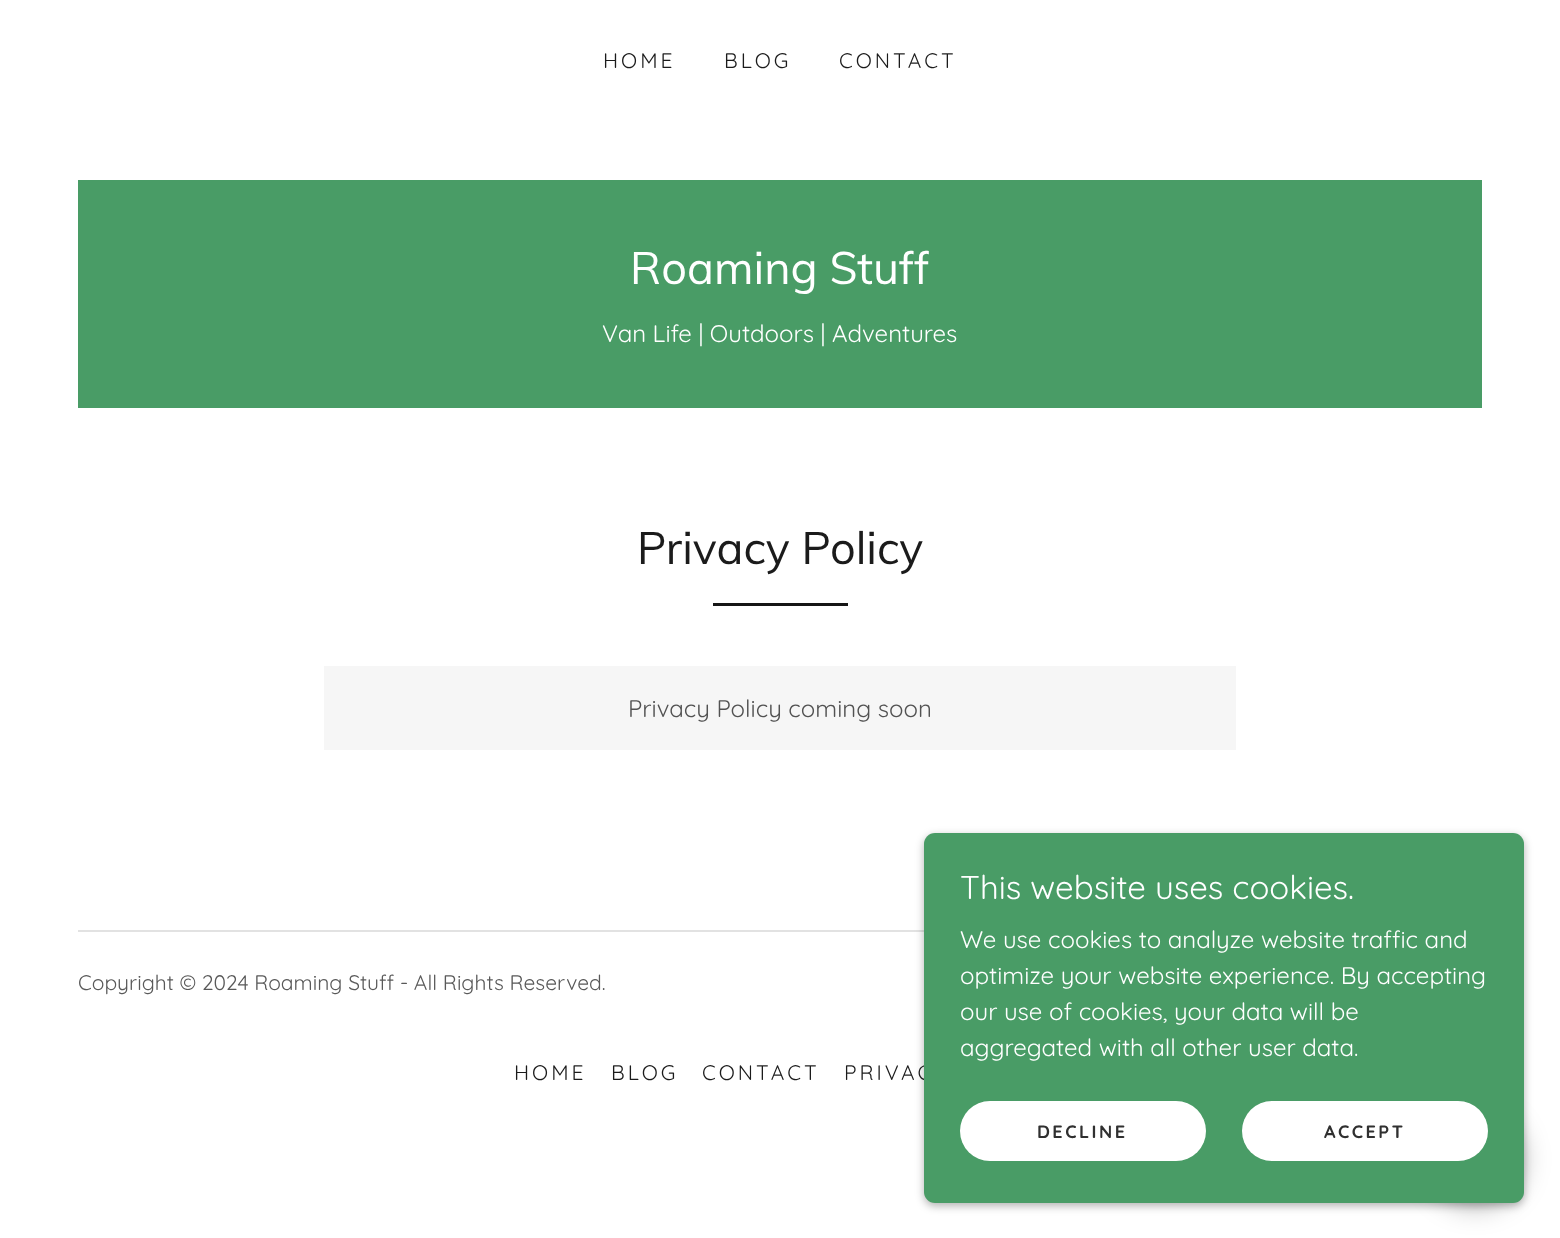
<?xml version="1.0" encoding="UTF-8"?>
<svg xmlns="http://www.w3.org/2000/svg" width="1560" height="1238">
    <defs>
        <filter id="blur1" x="-50%" y="-200%" width="200%" height="500%"><feGaussianBlur stdDeviation="4.5"/></filter>
        <filter id="blur2" x="-50%" y="-200%" width="200%" height="500%"><feGaussianBlur stdDeviation="13.5"/></filter>
    </defs>
    <rect width="100%" height="100%" fill="#FFFFFF"/>
    <text x="603" y="68" font-family="Quicksand" font-size="21" letter-spacing="3" fill="#1B1B1B">HOME</text>
    <text x="724" y="68" font-family="Quicksand" font-size="21" letter-spacing="3" fill="#1B1B1B">BLOG</text>
    <text x="839" y="68" font-family="Quicksand" font-size="21" letter-spacing="3" fill="#1B1B1B">CONTACT</text>
    <rect x="78" y="180" width="1404" height="228" fill="#499C66"/>
    <text x="630" y="284" font-family="Muli" font-size="45" fill="#FFFFFF">Roaming Stuff</text>
    <text x="602" y="342" font-family="Quicksand" font-size="24" fill="#FFFFFF">Van Life | Outdoors | Adventures</text>
    <text x="637" y="564" font-family="Muli" font-size="45" fill="#1B1B1B">Privacy Policy</text>
    <rect x="713" y="603" width="135" height="3" fill="#161616"/>
    <rect x="324" y="666" width="912" height="84" fill="#F6F6F6"/>
    <text x="628" y="717" font-family="Quicksand" font-size="24" fill="#525252">Privacy Policy coming soon</text>
    <rect x="78" y="930" width="846" height="2" fill="#E2E2E2"/>
    <text x="78" y="990" font-family="Quicksand" font-size="21" fill="#595959">Copyright © 2024 Roaming Stuff - All Rights Reserved.</text>
    <text x="514" y="1080" font-family="Quicksand" font-size="21" letter-spacing="3" fill="#1B1B1B">HOME</text>
    <text x="611" y="1080" font-family="Quicksand" font-size="21" letter-spacing="3" fill="#1B1B1B">BLOG</text>
    <text x="702" y="1080" font-family="Quicksand" font-size="21" letter-spacing="3" fill="#1B1B1B">CONTACT</text>
    <text x="844" y="1080" font-family="Quicksand" font-size="21" letter-spacing="3" fill="#1B1B1B">PRIVAC</text>
    <rect x="924" y="836" width="600" height="370" rx="11" fill="#000000" fill-opacity="0.3" filter="url(#blur1)"/>
    <rect x="1427" y="1110" width="97" height="98" rx="48.5" fill="#000000" fill-opacity="0.25" filter="url(#blur2)"/>
    <rect x="924" y="833" width="600" height="370" rx="11" fill="#499C66"/>
    <text x="960" y="899" font-family="Quicksand" font-size="33" fill="#FFFFFF">This website uses cookies.</text>
    <text font-family="Quicksand" font-size="24" fill="#FFFFFF">
        <tspan x="960" y="948">We use cookies to analyze website traffic and</tspan>
        <tspan x="960" y="984">optimize your website experience. By accepting</tspan>
        <tspan x="960" y="1020">our use of cookies, your data will be</tspan>
        <tspan x="960" y="1056">aggregated with all other user data.</tspan>
    </text>
    <rect x="960" y="1101" width="246" height="60" rx="30" fill="#FFFFFF"/>
    <text x="1037" y="1138" font-family="Quicksand" font-size="18" font-weight="700" letter-spacing="2.5" fill="#303030">DECLINE</text>
    <rect x="1242" y="1101" width="246" height="60" rx="30" fill="#FFFFFF"/>
    <text x="1324" y="1138" font-family="Quicksand" font-size="18" font-weight="700" letter-spacing="2.5" fill="#303030">ACCEPT</text>
</svg>
